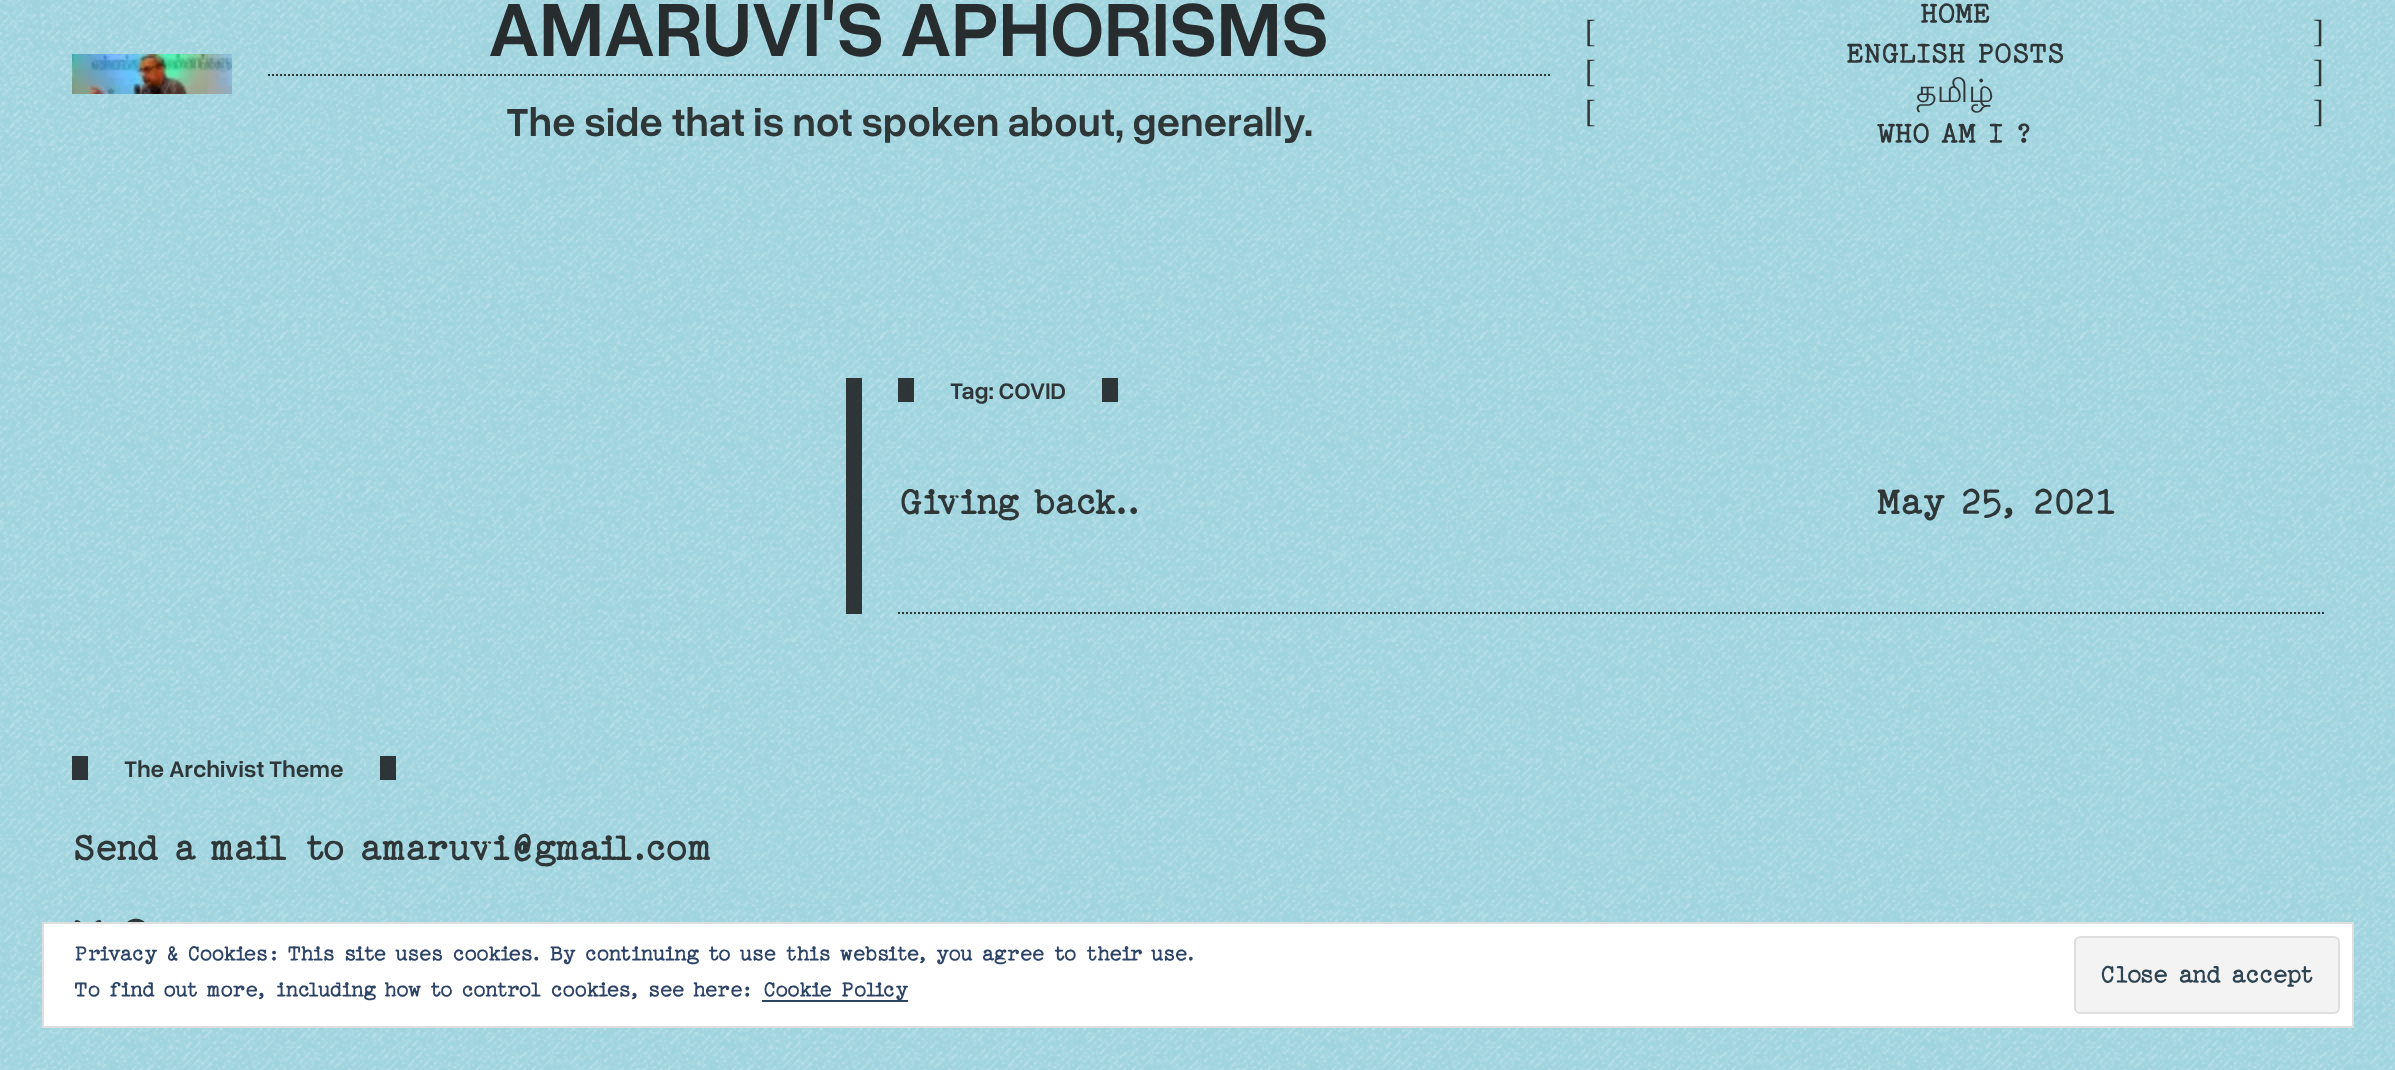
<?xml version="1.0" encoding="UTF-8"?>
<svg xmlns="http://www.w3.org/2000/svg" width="2395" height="1070">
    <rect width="100%" height="100%" fill="#9FD4DF"/>
    <image x="0" y="0" width="2395" height="1070" href="img_01.png"/>
    <image x="72" y="54" width="160" height="40" href="img_02.png"/>
    <path d="M 268 75 H 1550" fill="none" stroke="#19191A" stroke-opacity="0.85" stroke-width="2" stroke-dasharray="2 2"/>
    <text x="488" y="56" font-family="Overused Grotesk" font-size="80" font-weight="600" fill="#272C2E">AMARUVI'S APHORISMS</text>
    <text x="506" y="136" font-family="Overused Grotesk" font-size="41.6" font-weight="600" fill="#2E3638">The side that is not spoken about, generally.</text>
    <text font-family="Liberation Serif" font-size="32" fill="#2E3638">
        <tspan x="1585" y="42">[</tspan>
        <tspan x="1585" y="82">[</tspan>
        <tspan x="1585" y="122">[</tspan>
    </text>
    <text x="1920" y="22" font-family="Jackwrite" font-size="32" fill="#2E3638">HOME</text>
    <text x="1846" y="62" font-family="Jackwrite" font-size="32" fill="#2E3638">ENGLISH POSTS</text>
    <text x="1916" y="102" font-family="Lohit Tamil" font-size="32" fill="#2E3638">தமிழ்</text>
    <text x="1877" y="142" font-family="Jackwrite" font-size="32" fill="#2E3638">WHO AM I ?</text>
    <text font-family="Liberation Serif" font-size="32" fill="#2E3638">
        <tspan x="2313" y="42">]</tspan>
        <tspan x="2313" y="82">]</tspan>
        <tspan x="2313" y="122">]</tspan>
    </text>
    <rect x="846" y="378" width="16" height="236" fill="#19191A" fill-opacity="0.85"/>
    <rect x="1102" y="378" width="16" height="24" fill="#19191A" fill-opacity="0.85"/>
    <rect x="898" y="378" width="16" height="24" fill="#19191A" fill-opacity="0.85"/>
    <text x="950" y="399" font-family="Overused Grotesk" font-size="24" font-weight="600" fill="#2E3638">Tag: COVID</text>
    <path d="M 898 613 H 2324" fill="none" stroke="#19191A" stroke-opacity="0.85" stroke-width="2" stroke-dasharray="2 2"/>
    <text x="899" y="513" font-family="Jackwrite" font-size="41.6" fill="#2E3638">Giving back..</text>
    <text x="1877" y="513" font-family="Jackwrite" font-size="41.6" fill="#2E3638">May 25, 2021</text>
    <rect x="380" y="756" width="16" height="24" fill="#19191A" fill-opacity="0.85"/>
    <rect x="72" y="756" width="16" height="24" fill="#19191A" fill-opacity="0.85"/>
    <text x="124" y="777" font-family="Overused Grotesk" font-size="24" font-weight="600" fill="#2E3638">The Archivist Theme</text>
    <text x="72" y="859" font-family="Jackwrite" font-size="41.6" fill="#2E3638">Send a mail to amaruvi@gmail.com</text>
    <image x="74" y="920" width="28" height="2" href="img_03.png"/>
    <image x="127" y="918" width="18" height="4" href="img_04.png"/>
    <rect x="43" y="923" width="2310" height="104" fill="#FFFFFF" stroke="#DEDEDE" stroke-width="2"/>
    <text x="74" y="960" font-family="Jackwrite" font-size="24" fill="#2E4467">Privacy &amp; Cookies: This site uses cookies. By continuing to use this website, you agree to their use.</text>
    <rect x="2075" y="937" width="264" height="76" rx="5" fill="#F3F3F3" stroke="#DEDEDE" stroke-width="2"/>
    <text x="2100" y="982" font-family="Jackwrite" font-size="28" fill="#2E4453">Close and accept</text>
    <text x="74" y="996" word-spacing="-0.25" font-family="Jackwrite" font-size="24" fill="#2E4467">To find out more, including how to control cookies, see here:</text>
    <rect x="762" y="1000" width="146" height="2" fill="#2E4467"/>
    <text x="763" y="996" font-family="Jackwrite" font-size="24" fill="#2E4467">Cookie Policy</text>
</svg>
